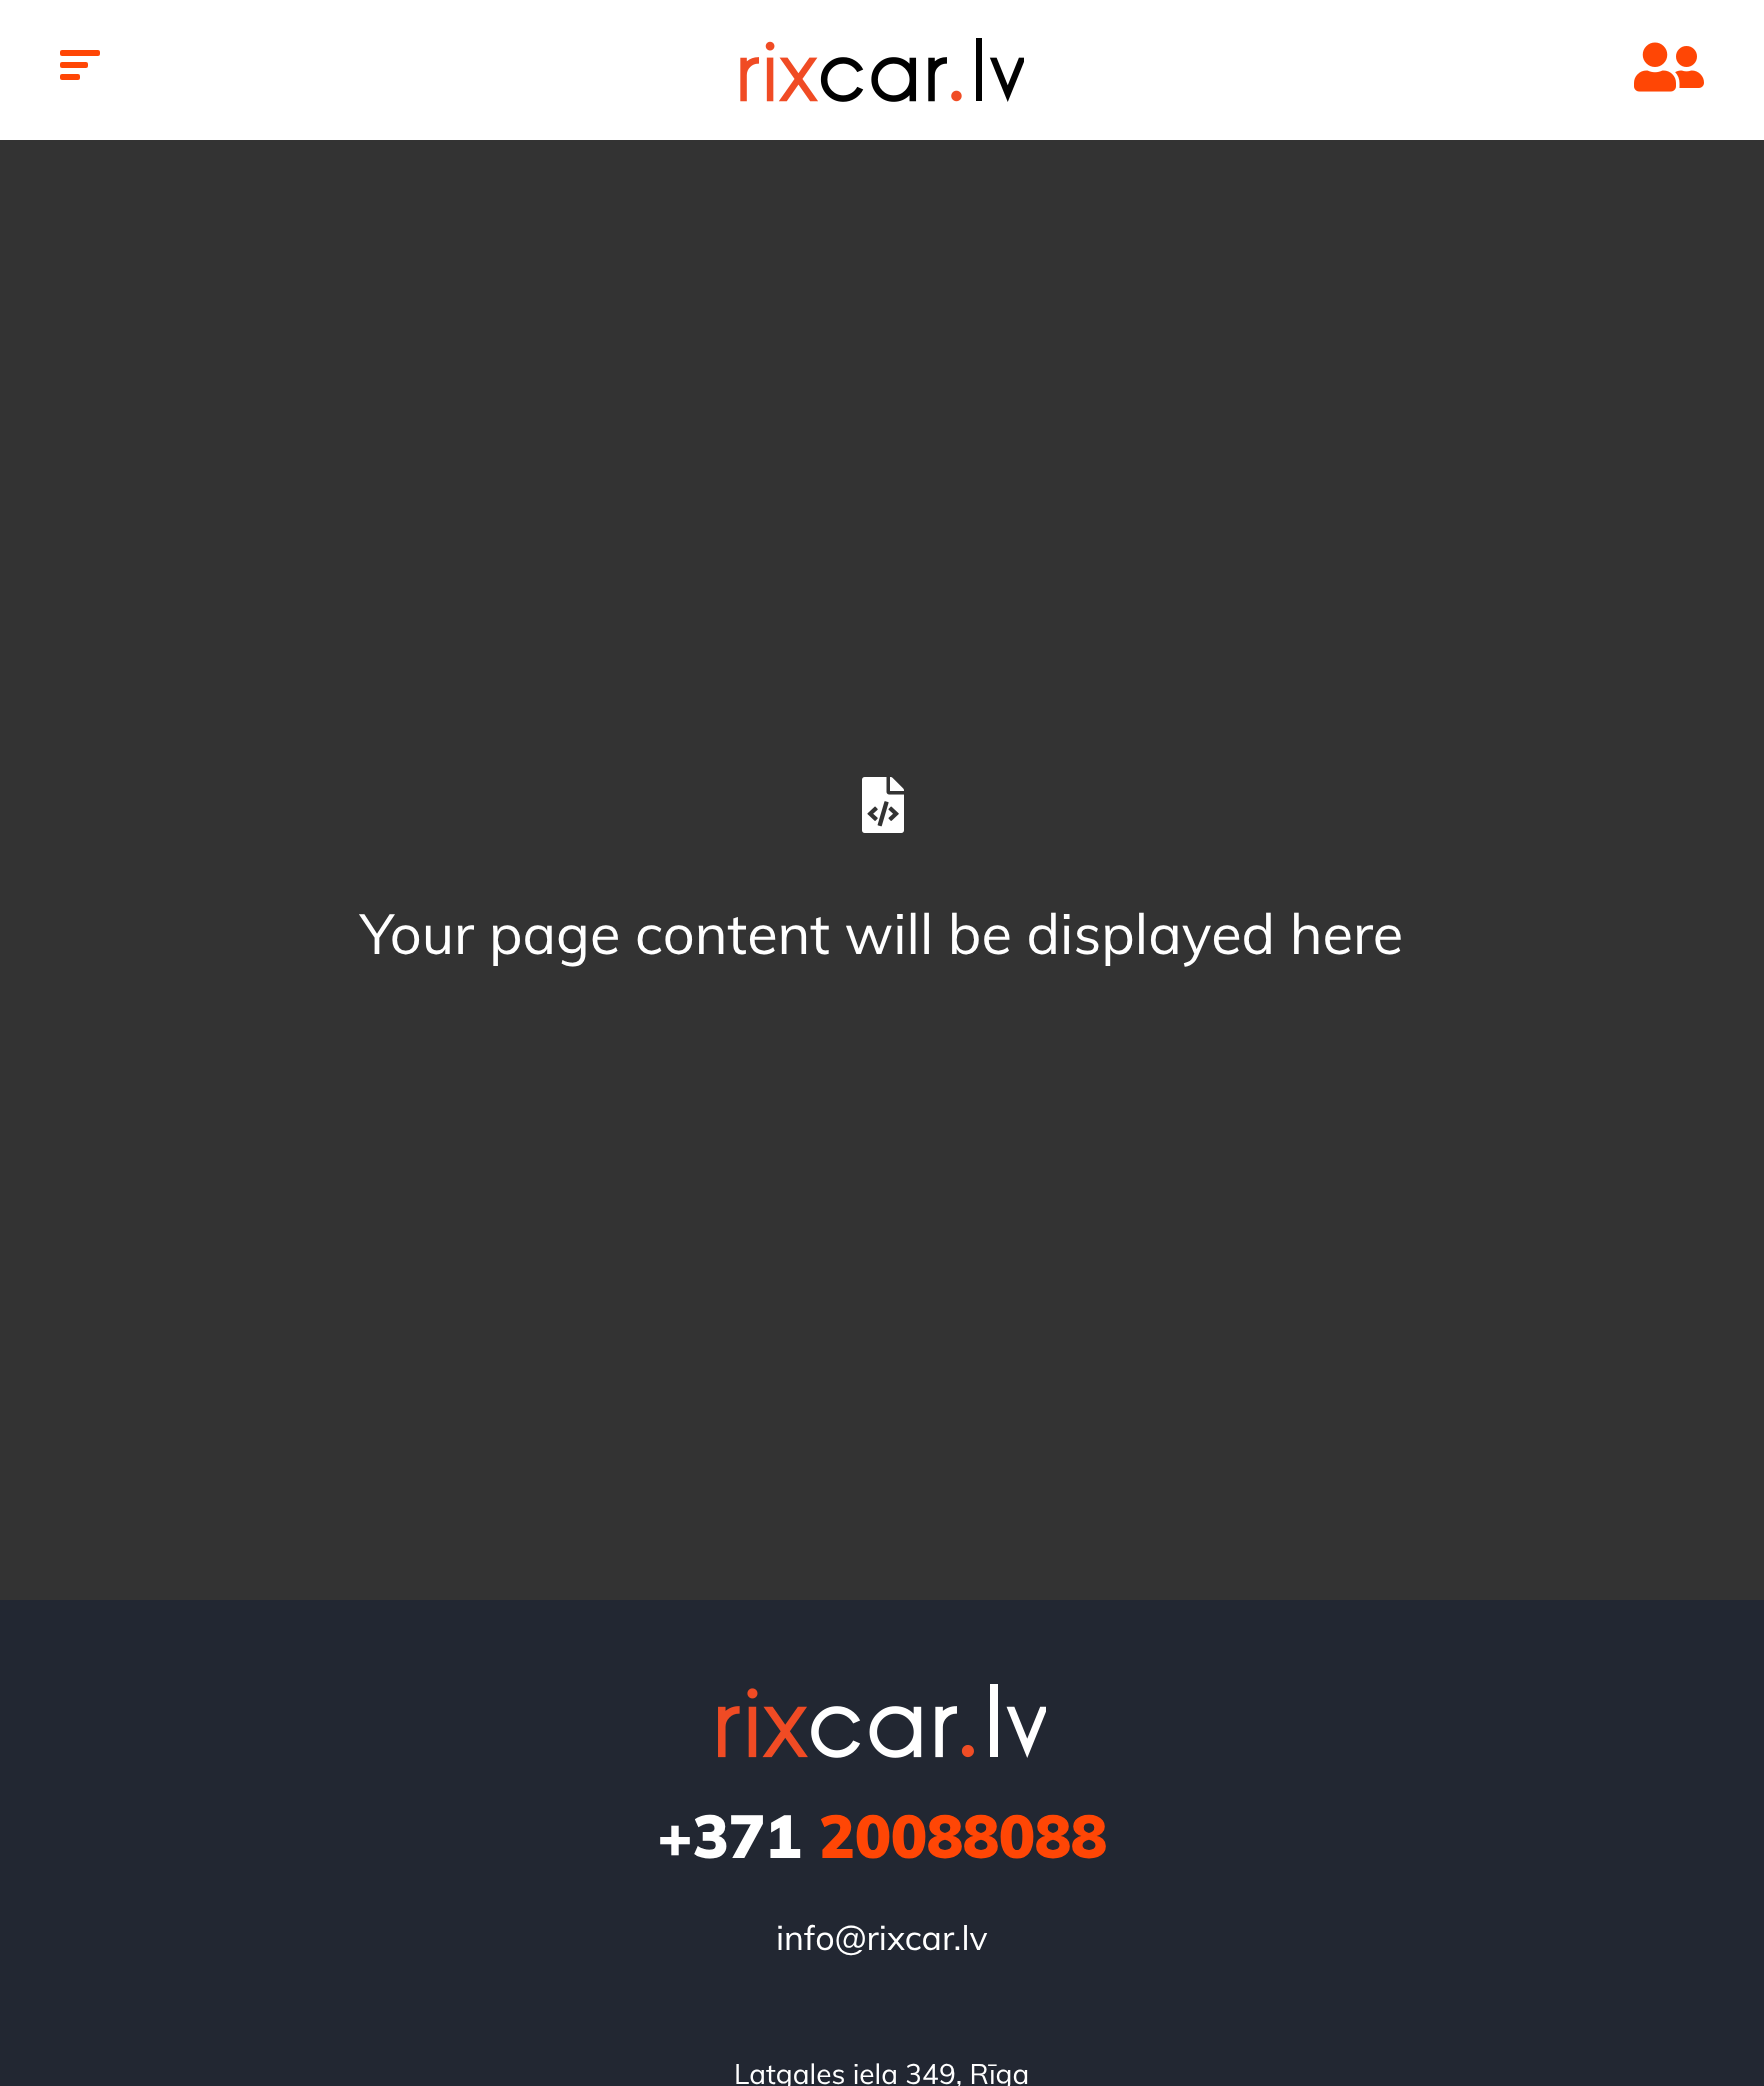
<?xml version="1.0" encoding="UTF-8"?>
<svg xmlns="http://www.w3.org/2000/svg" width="1764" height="2086">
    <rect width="100%" height="100%" fill="#333333"/>
    <rect x="0" y="0" width="1764" height="140" fill="#FFFFFF"/>
    <rect x="60" y="50" width="40" height="6" rx="2" fill="#FF4605"/>
    <rect x="60" y="62" width="28" height="6" rx="2" fill="#FF4605"/>
    <rect x="60" y="74" width="20" height="6" rx="2" fill="#FF4605"/>
    <image x="740" y="38" width="284" height="64" href="img_01.png"/>
    <image x="1634" y="42" width="70" height="50" href="img_02.png"/>
    <image x="862" y="777" width="42" height="56" href="img_03.png"/>
    <text x="360" y="954" font-family="Muli" font-size="56" fill="#FFFFFF">Your page content will be displayed here</text>
    <rect x="0" y="1600" width="1764" height="486" fill="#222732"/>
    <image x="718" y="1684" width="328" height="74" href="img_04.png"/>
    <text x="657" y="1858" font-family="Muli" font-size="60" font-weight="900" fill="#FFFFFF">+371</text>
    <text x="819" y="1858" font-family="Muli" font-size="60" font-weight="900" fill="#FF4605">20088088</text>
    <text x="776" y="1950" font-family="Muli" font-size="34" fill="#FFFFFF">info@rixcar.lv</text>
    <text x="734" y="2084" font-family="Muli" font-size="28" fill="#FFFFFF">Latgales iela 349, Rīga</text>
</svg>
